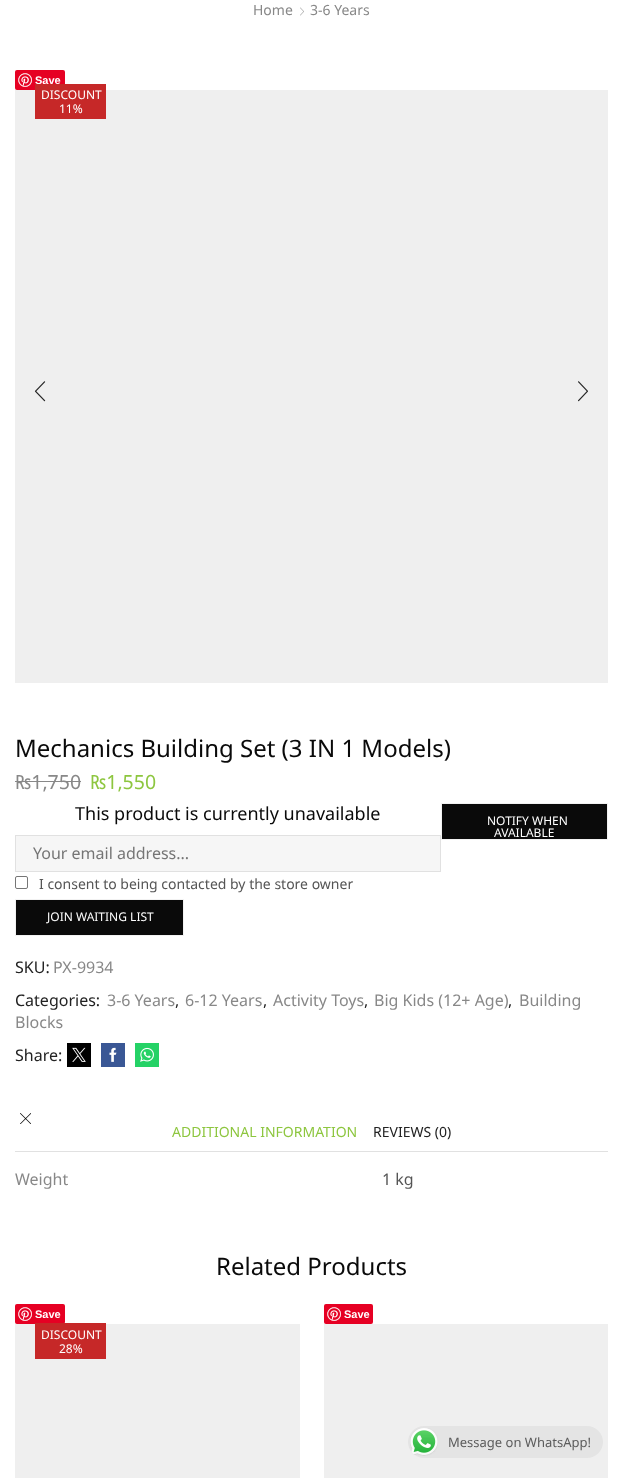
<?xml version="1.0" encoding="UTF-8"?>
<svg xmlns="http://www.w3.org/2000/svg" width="623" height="1478">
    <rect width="100%" height="100%" fill="#FFFFFF"/>
    <text x="253" y="15" font-family="Noto Sans" font-size="14" fill="#888888">Home</text>
    <image x="300" y="7" width="4" height="9" href="img_01.png"/>
    <text x="310" y="15" font-family="Noto Sans" font-size="14" fill="#888888">3-6 Years</text>
    <rect x="15" y="70" width="50" height="20" rx="2" fill="#E60023"/>
    <image x="18" y="73" width="14" height="14" href="img_02.png"/>
    <text x="35" y="84" font-family="Liberation Sans" font-size="11" font-weight="700" fill="#FFFFFF">Save</text>
    <rect x="15" y="90" width="593" height="593" fill="#EFEFEF"/>
    <image x="34" y="381" width="12" height="21" href="img_03.png"/>
    <image x="578" y="381" width="10" height="21" href="img_04.png"/>
    <rect x="35" y="84" width="71" height="35" fill="#C62828"/>
    <text x="41" y="99" font-family="Noto Sans" font-size="12" fill="#FFFFFF">DISCOUNT</text>
    <text x="59" y="113" font-family="Noto Sans" font-size="12" fill="#FFFFFF">11%</text>
    <text x="15" y="757" font-family="Noto Sans" font-size="24" fill="#0A0A0A">Mechanics Building Set (3 IN 1 Models)</text>
    <text x="15" y="789" font-family="Noto Sans" font-size="19.5" fill="#888888">₨1,750</text>
    <rect x="15" y="781" width="66" height="1" fill="#888888"/>
    <text x="90" y="789" font-family="Noto Sans" font-size="19.5" fill="#8DC63F">₨1,550</text>
    <text x="75" y="820" font-family="Noto Sans" font-size="18" fill="#0A0A0A">This product is currently unavailable</text>
    <rect x="15.5" y="835.5" width="425" height="36" fill="#F6F6F6" stroke="#E1E1E1"/>
    <text x="33" y="859" font-family="Noto Sans" font-size="16" fill="#757575">Your email address...</text>
    <rect x="15.5" y="876.5" width="12" height="12" rx="1.5" fill="none" stroke="#767676"/>
    <text x="39" y="889" font-family="Noto Sans" font-size="14" fill="#555555">I consent to being contacted by the store owner</text>
    <rect x="15.5" y="899.5" width="168" height="36" fill="#0A0A0A" stroke="#F2F2F2"/>
    <text x="47" y="921" font-family="Noto Sans" font-size="12" fill="#FFFFFF">JOIN WAITING LIST</text>
    <image x="20" y="1113" width="11" height="11" href="img_05.png"/>
    <rect x="441.5" y="803.5" width="166" height="36" fill="#0A0A0A" stroke="#F2F2F2"/>
    <text x="487" y="825" font-family="Noto Sans" font-size="12" fill="#FFFFFF">NOTIFY WHEN</text>
    <text x="494" y="837" font-family="Noto Sans" font-size="12" fill="#FFFFFF">AVAILABLE</text>
    <text x="15" y="973" font-family="Noto Sans" font-size="16" fill="#222222">SKU:</text>
    <text x="53" y="973" font-family="Noto Sans" font-size="16" fill="#888888">PX-9934</text>
    <text x="15" y="1006" font-family="Noto Sans" font-size="16" fill="#222222">Categories:</text>
    <text x="107" y="1006" font-family="Noto Sans" font-size="16" fill="#888888">3-6 Years</text>
    <text x="175" y="1006" font-family="Noto Sans" font-size="16" fill="#222222">,</text>
    <text x="185" y="1006" font-family="Noto Sans" font-size="16" fill="#888888">6-12 Years</text>
    <text x="263" y="1006" font-family="Noto Sans" font-size="16" fill="#222222">,</text>
    <text x="273" y="1006" font-family="Noto Sans" font-size="16" fill="#888888">Activity Toys</text>
    <text x="364" y="1006" font-family="Noto Sans" font-size="16" fill="#222222">,</text>
    <text x="374" y="1006" font-family="Noto Sans" font-size="16" fill="#888888">Big Kids (12+ Age)</text>
    <text x="508" y="1006" font-family="Noto Sans" font-size="16" fill="#222222">,</text>
    <text x="519" y="1006" font-family="Noto Sans" font-size="16" fill="#888888">Building</text>
    <text x="15" y="1028" font-family="Noto Sans" font-size="16" fill="#888888">Blocks</text>
    <text x="15" y="1061" font-family="Noto Sans" font-size="16" fill="#222222">Share:</text>
    <rect x="67" y="1043" width="24" height="24" fill="#000000"/>
    <image x="72" y="1047" width="14" height="15" href="img_06.png"/>
    <rect x="101" y="1043" width="24" height="24" fill="#3A5795"/>
    <image x="109" y="1047" width="8" height="15" href="img_07.png"/>
    <rect x="135" y="1043" width="24" height="24" fill="#25D266"/>
    <image x="140" y="1047" width="14" height="15" href="img_08.png"/>
    <rect x="15" y="1151" width="593" height="1" fill="#E1E1E1"/>
    <text x="172" y="1137" font-family="Noto Sans" font-size="14" fill="#8DC63F">ADDITIONAL INFORMATION</text>
    <text x="373" y="1137" font-family="Noto Sans" font-size="14" fill="#222222">REVIEWS (0)</text>
    <text x="15" y="1185" font-family="Noto Sans" font-size="16" fill="#888888">Weight</text>
    <text x="382" y="1185" font-family="Noto Sans" font-size="16" fill="#555555">1 kg</text>
    <text x="216" y="1275" font-family="Noto Sans" font-size="24" fill="#0A0A0A">Related Products</text>
    <rect x="15" y="1304" width="50" height="20" rx="2" fill="#E60023"/>
    <image x="18" y="1307" width="14" height="14" href="img_02.png"/>
    <text x="35" y="1318" font-family="Liberation Sans" font-size="11" font-weight="700" fill="#FFFFFF">Save</text>
    <rect x="15" y="1324" width="285" height="154" fill="#EFEFEF"/>
    <rect x="35" y="1323" width="71" height="36" fill="#C62828"/>
    <text x="41" y="1339" font-family="Noto Sans" font-size="12" fill="#FFFFFF">DISCOUNT</text>
    <text x="59" y="1353" font-family="Noto Sans" font-size="12" fill="#FFFFFF">28%</text>
    <rect x="324" y="1304" width="49" height="20" rx="2" fill="#E60023"/>
    <image x="327" y="1307" width="14" height="14" href="img_02.png"/>
    <text x="344" y="1318" font-family="Liberation Sans" font-size="11" font-weight="700" fill="#FFFFFF">Save</text>
    <rect x="324" y="1324" width="284" height="154" fill="#EFEFEF"/>
    <rect x="408" y="1426" width="195" height="32" rx="16" fill="#E4E4E4"/>
    <image x="410" y="1428" width="28" height="28" href="img_09.png"/>
    <text x="448" y="1447" font-family="Noto Sans" font-size="13" fill="#5B5B5B">Message on WhatsApp!</text>
</svg>
